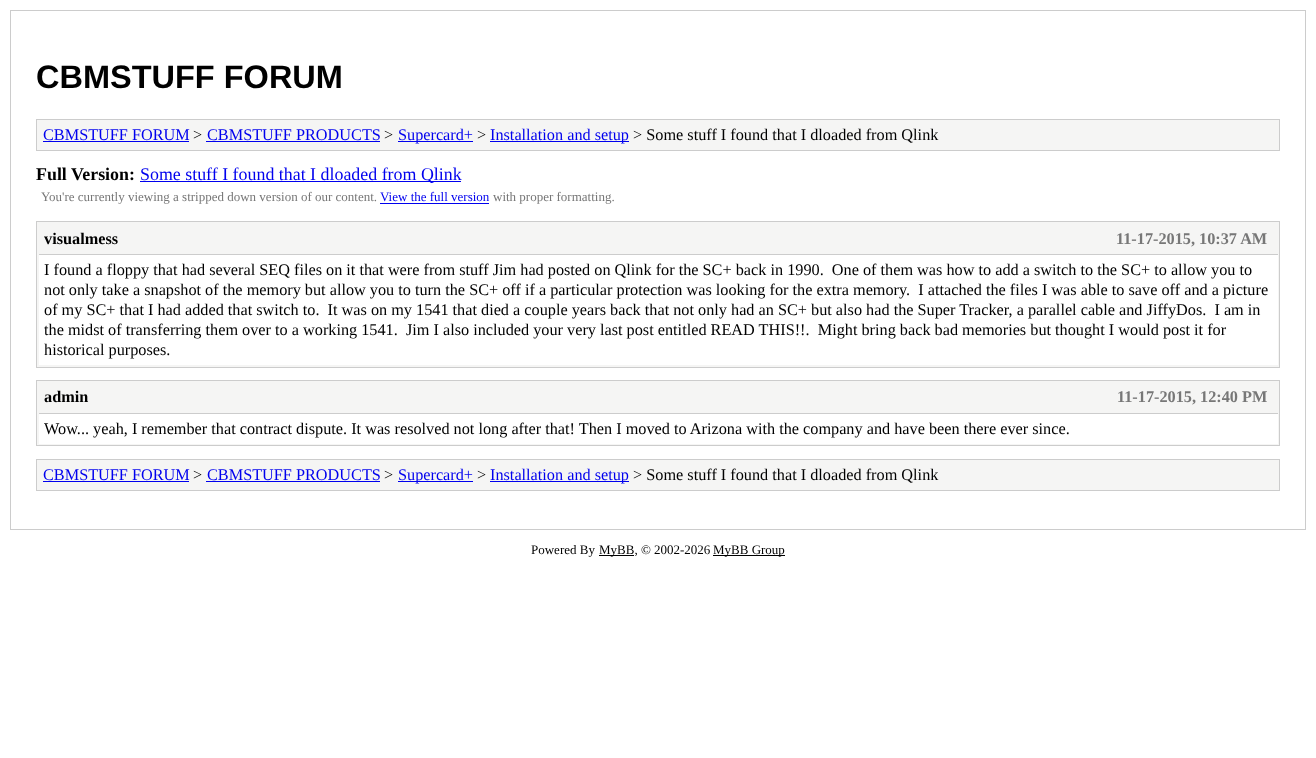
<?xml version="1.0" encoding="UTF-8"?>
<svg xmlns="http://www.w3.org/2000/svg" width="1316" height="758">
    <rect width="100%" height="100%" fill="#FFFFFF"/>
    <rect x="10.5" y="10.5" width="1295" height="519" fill="none" stroke="#CCCCCC"/>
    <text x="36" y="88" font-family="Liberation Sans" font-size="32.5" font-weight="700" fill="#000000">CBMSTUFF FORUM</text>
    <rect x="36.5" y="119.5" width="1243" height="31" fill="#F5F5F4" stroke="#CCCCCC"/>
    <text x="43" y="140" font-family="Liberation Serif" font-size="16.25" fill="#0000EE">CBMSTUFF FORUM</text>
    <rect x="43" y="141" width="146" height="1" fill="#0000EE"/>
    <text x="193" y="140" font-family="Liberation Serif" font-size="16.25" fill="#000000">&gt;</text>
    <text x="207" y="140" font-family="Liberation Serif" font-size="16.25" fill="#0000EE">CBMSTUFF PRODUCTS</text>
    <rect x="206" y="141" width="174" height="1" fill="#0000EE"/>
    <text x="384" y="140" font-family="Liberation Serif" font-size="16.25" fill="#000000">&gt;</text>
    <rect x="398" y="141" width="75" height="1" fill="#0000EE"/>
    <text x="398" y="140" font-family="Liberation Serif" font-size="16.25" fill="#0000EE">Supercard+</text>
    <text x="477" y="140" font-family="Liberation Serif" font-size="16.25" fill="#000000">&gt;</text>
    <rect x="490" y="141" width="139" height="1" fill="#0000EE"/>
    <text x="490" y="140" font-family="Liberation Serif" font-size="16.25" fill="#0000EE">Installation and setup</text>
    <text x="633" y="140" font-family="Liberation Serif" font-size="16.25" fill="#000000">&gt; Some stuff I found that I dloaded from Qlink</text>
    <text x="36" y="180" font-family="Liberation Serif" font-size="17.9" font-weight="700" fill="#000000">Full Version:</text>
    <rect x="140" y="181" width="321" height="1" fill="#0000EE"/>
    <text x="140" y="180" font-family="Liberation Serif" font-size="17.9" fill="#0000EE">Some stuff I found that I dloaded from Qlink</text>
    <text x="41" y="201" font-family="Liberation Serif" font-size="13" fill="#777777">You're currently viewing a stripped down version of our content.</text>
    <text x="380" y="201" font-family="Liberation Serif" font-size="13" fill="#0000EE">View the full version</text>
    <rect x="380" y="203" width="109" height="1" fill="#0000EE"/>
    <text x="493" y="201" font-family="Liberation Serif" font-size="13" fill="#777777">with proper formatting.</text>
    <rect x="36.5" y="221.5" width="1243" height="146" fill="#F5F5F4" stroke="#CCCCCC"/>
    <rect x="39" y="254" width="1239" height="1" fill="#CCCCCC"/>
    <text x="44" y="244" font-family="Liberation Serif" font-size="16.25" font-weight="700" fill="#000000">visualmess</text>
    <text x="1116" y="244" font-family="Liberation Serif" font-size="16.25" font-weight="700" fill="#777777">11-17-2015, 10:37 AM</text>
    <rect x="39" y="255" width="1239" height="110" fill="#FFFFFF"/>
    <text font-family="Liberation Serif" font-size="16.25" fill="#000000" xml:space="preserve"><tspan x="44" y="275">I found a floppy that had several SEQ files on it that were from stuff Jim had posted on Qlink for the SC+ back in 1990.  One of them was how to add a switch to the SC+ to allow you to</tspan><tspan x="44" y="295">not only take a snapshot of the memory but allow you to turn the SC+ off if a particular protection was looking for the extra memory.  I attached the files I was able to save off and a picture</tspan><tspan x="44" y="315">of my SC+ that I had added that switch to.  It was on my 1541 that died a couple years back that not only had an SC+ but also had the Super Tracker, a parallel cable and JiffyDos.  I am in</tspan><tspan x="44" y="335">the midst of transferring them over to a working 1541.  Jim I also included your very last post entitled READ THIS!!.  Might bring back bad memories but thought I would post it for</tspan><tspan x="44" y="355">historical purposes.</tspan></text>
    <rect x="36.5" y="380.5" width="1243" height="65" fill="#F5F5F4" stroke="#CCCCCC"/>
    <rect x="39" y="413" width="1239" height="1" fill="#CCCCCC"/>
    <text x="44" y="402" font-family="Liberation Serif" font-size="16.25" font-weight="700" fill="#000000">admin</text>
    <text x="1117" y="402" font-family="Liberation Serif" font-size="16.25" font-weight="700" fill="#777777">11-17-2015, 12:40 PM</text>
    <rect x="39" y="414" width="1239" height="30" fill="#FFFFFF"/>
    <text x="44" y="434" font-family="Liberation Serif" font-size="16.25" fill="#000000">Wow... yeah, I remember that contract dispute. It was resolved not long after that! Then I moved to Arizona with the company and have been there ever since.</text>
    <rect x="36.5" y="459.5" width="1243" height="31" fill="#F5F5F4" stroke="#CCCCCC"/>
    <text x="43" y="480" font-family="Liberation Serif" font-size="16.25" fill="#0000EE">CBMSTUFF FORUM</text>
    <rect x="43" y="481" width="146" height="1" fill="#0000EE"/>
    <text x="193" y="480" font-family="Liberation Serif" font-size="16.25" fill="#000000">&gt;</text>
    <text x="207" y="480" font-family="Liberation Serif" font-size="16.25" fill="#0000EE">CBMSTUFF PRODUCTS</text>
    <rect x="206" y="481" width="174" height="1" fill="#0000EE"/>
    <text x="384" y="480" font-family="Liberation Serif" font-size="16.25" fill="#000000">&gt;</text>
    <rect x="398" y="481" width="75" height="1" fill="#0000EE"/>
    <text x="398" y="480" font-family="Liberation Serif" font-size="16.25" fill="#0000EE">Supercard+</text>
    <text x="477" y="480" font-family="Liberation Serif" font-size="16.25" fill="#000000">&gt;</text>
    <rect x="490" y="481" width="139" height="1" fill="#0000EE"/>
    <text x="490" y="480" font-family="Liberation Serif" font-size="16.25" fill="#0000EE">Installation and setup</text>
    <text x="633" y="480" font-family="Liberation Serif" font-size="16.25" fill="#000000">&gt; Some stuff I found that I dloaded from Qlink</text>
    <text x="531" y="554" font-family="Liberation Serif" font-size="13" fill="#000000">Powered By</text>
    <rect x="599" y="555" width="35" height="1" fill="#000000"/>
    <text x="599" y="554" font-family="Liberation Serif" font-size="13" fill="#000000">MyBB, © 2002-2026</text>
    <rect x="713" y="555" width="72" height="1" fill="#000000"/>
    <text x="713" y="554" font-family="Liberation Serif" font-size="13" fill="#000000">MyBB Group</text>
</svg>
